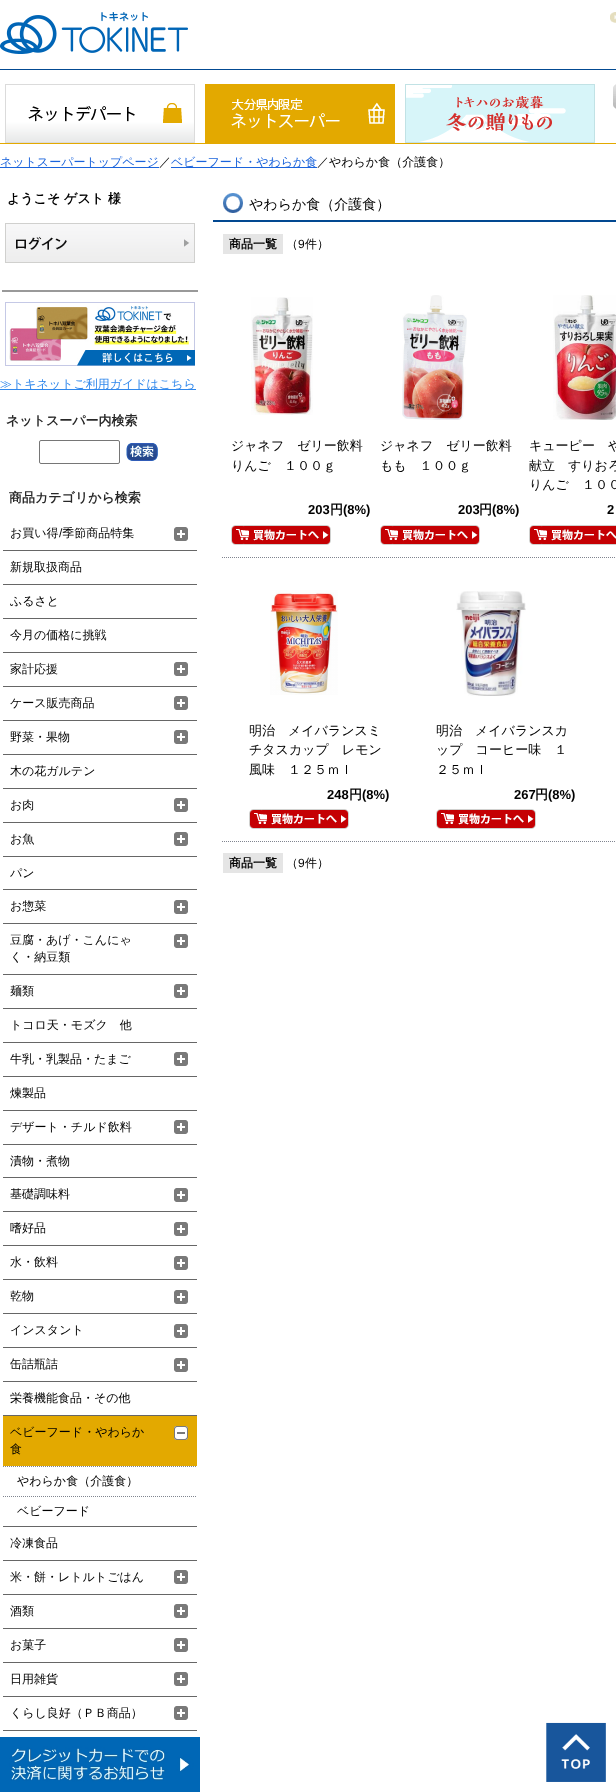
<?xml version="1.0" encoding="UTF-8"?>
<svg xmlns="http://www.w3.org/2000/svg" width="616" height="1792">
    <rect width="100%" height="100%" fill="#FFFFFF"/>
    <rect x="0" y="69" width="616" height="1" fill="#034A92"/>
    <image x="0" y="12" width="188" height="42" href="img_01.png"/>
    <image x="610" y="12" width="6" height="11" href="img_02.png"/>
    <rect x="0" y="143" width="616" height="1" fill="#E3A900"/>
    <image x="5" y="84" width="190" height="59" href="img_03.png"/>
    <image x="205" y="84" width="190" height="59" href="img_04.png"/>
    <image x="405" y="84" width="190" height="59" href="img_05.png"/>
    <image x="613" y="84" width="3" height="25" href="img_06.png"/>
    <rect x="0" y="167" width="159" height="1" fill="#1B64DC"/>
    <text x="0" y="166" font-family="WenQuanYi Zen Hei" font-size="12" font-weight="500" fill="#1B64DC">ネットスーパートップページ</text>
    <text x="159" y="166" font-family="WenQuanYi Zen Hei" font-size="12" font-weight="500" fill="#000000">／</text>
    <rect x="171" y="167" width="146" height="1" fill="#1B64DC"/>
    <text x="171" y="166" font-family="WenQuanYi Zen Hei" font-size="12" font-weight="500" fill="#1B64DC">ベビーフード・やわらか食</text>
    <text x="317" y="166" font-family="WenQuanYi Zen Hei" font-size="12" font-weight="500" fill="#000000">／やわらか食（介護食）</text>
    <rect x="2" y="290" width="196" height="2" fill="#999999"/>
    <text x="7" y="203" font-family="WenQuanYi Zen Hei" font-size="13" font-weight="700" fill="#000000">ようこそ ゲスト 様</text>
    <image x="5" y="223" width="190" height="40" href="img_07.png"/>
    <image x="5" y="302" width="190" height="64" href="img_08.png"/>
    <rect x="0" y="389" width="196" height="1" fill="#2F87EC"/>
    <text x="0" y="388" font-family="WenQuanYi Zen Hei" font-size="12" font-weight="500" fill="#2F87EC">≫トキネットご利用ガイドはこちら</text>
    <text x="6" y="425" font-family="WenQuanYi Zen Hei" font-size="13" font-weight="700" fill="#282828">ネットスーパー内検索</text>
    <rect x="39.5" y="440.5" width="80" height="23" rx="1.5" fill="none" stroke="#767676"/>
    <image x="126" y="443" width="32" height="18" href="img_09.png"/>
    <text x="9" y="502" font-family="WenQuanYi Zen Hei" font-size="13" font-weight="700" fill="#282828">商品カテゴリから検索</text>
    <rect x="3" y="550" width="194" height="1" fill="#666666"/>
    <text x="10" y="537" font-family="WenQuanYi Zen Hei" font-size="12" font-weight="500" fill="#000000">お買い得 季節商品特集</text>
    <text x="59" y="537" font-family="Liberation Sans" font-size="12" fill="#000000">/</text>
    <image x="174" y="527" width="14" height="14" href="img_10.png"/>
    <rect x="3" y="584" width="194" height="1" fill="#666666"/>
    <text x="10" y="571" font-family="WenQuanYi Zen Hei" font-size="12" font-weight="500" fill="#000000">新規取扱商品</text>
    <rect x="3" y="618" width="194" height="1" fill="#666666"/>
    <text x="10" y="605" font-family="WenQuanYi Zen Hei" font-size="12" font-weight="500" fill="#000000">ふるさと</text>
    <rect x="3" y="652" width="194" height="1" fill="#666666"/>
    <text x="10" y="639" font-family="WenQuanYi Zen Hei" font-size="12" font-weight="500" fill="#000000">今月の価格に挑戦</text>
    <rect x="3" y="686" width="194" height="1" fill="#666666"/>
    <text x="10" y="673" font-family="WenQuanYi Zen Hei" font-size="12" font-weight="500" fill="#000000">家計応援</text>
    <image x="174" y="662" width="14" height="14" href="img_10.png"/>
    <rect x="3" y="720" width="194" height="1" fill="#666666"/>
    <text x="10" y="707" font-family="WenQuanYi Zen Hei" font-size="12" font-weight="500" fill="#000000">ケース販売商品</text>
    <image x="174" y="696" width="14" height="14" href="img_10.png"/>
    <rect x="3" y="754" width="194" height="1" fill="#666666"/>
    <text x="10" y="741" font-family="WenQuanYi Zen Hei" font-size="12" font-weight="500" fill="#000000">野菜・果物</text>
    <image x="174" y="730" width="14" height="14" href="img_10.png"/>
    <rect x="3" y="788" width="194" height="1" fill="#666666"/>
    <text x="10" y="775" font-family="WenQuanYi Zen Hei" font-size="12" font-weight="500" fill="#000000">木の花ガルテン</text>
    <rect x="3" y="822" width="194" height="1" fill="#666666"/>
    <text x="10" y="809" font-family="WenQuanYi Zen Hei" font-size="12" font-weight="500" fill="#000000">お肉</text>
    <image x="174" y="798" width="14" height="14" href="img_10.png"/>
    <rect x="3" y="856" width="194" height="1" fill="#666666"/>
    <text x="10" y="843" font-family="WenQuanYi Zen Hei" font-size="12" font-weight="500" fill="#000000">お魚</text>
    <image x="174" y="832" width="14" height="14" href="img_10.png"/>
    <rect x="3" y="889" width="194" height="1" fill="#666666"/>
    <text x="10" y="877" font-family="WenQuanYi Zen Hei" font-size="12" font-weight="500" fill="#000000">パン</text>
    <rect x="3" y="923" width="194" height="1" fill="#666666"/>
    <text x="10" y="910" font-family="WenQuanYi Zen Hei" font-size="12" font-weight="500" fill="#000000">お惣菜</text>
    <image x="174" y="900" width="14" height="14" href="img_10.png"/>
    <rect x="3" y="974" width="194" height="1" fill="#666666"/>
    <text font-family="WenQuanYi Zen Hei" font-size="12" font-weight="500" fill="#000000">
        <tspan x="10" y="944">豆腐・あげ・こんにゃ</tspan>
        <tspan x="10" y="961">く・納豆類</tspan>
    </text>
    <image x="174" y="934" width="14" height="14" href="img_10.png"/>
    <rect x="3" y="1008" width="194" height="1" fill="#666666"/>
    <text x="10" y="995" font-family="WenQuanYi Zen Hei" font-size="12" font-weight="500" fill="#000000">麺類</text>
    <image x="174" y="984" width="14" height="14" href="img_10.png"/>
    <rect x="3" y="1042" width="194" height="1" fill="#666666"/>
    <text x="10" y="1029" font-family="WenQuanYi Zen Hei" font-size="12" font-weight="500" fill="#000000">トコロ天・モズク　他</text>
    <rect x="3" y="1076" width="194" height="1" fill="#666666"/>
    <text x="10" y="1063" font-family="WenQuanYi Zen Hei" font-size="12" font-weight="500" fill="#000000">牛乳・乳製品・たまご</text>
    <image x="174" y="1052" width="14" height="14" href="img_10.png"/>
    <rect x="3" y="1110" width="194" height="1" fill="#666666"/>
    <text x="10" y="1097" font-family="WenQuanYi Zen Hei" font-size="12" font-weight="500" fill="#000000">煉製品</text>
    <rect x="3" y="1144" width="194" height="1" fill="#666666"/>
    <text x="10" y="1131" font-family="WenQuanYi Zen Hei" font-size="12" font-weight="500" fill="#000000">デザート・チルド飲料</text>
    <image x="174" y="1120" width="14" height="14" href="img_10.png"/>
    <rect x="3" y="1177" width="194" height="1" fill="#666666"/>
    <text x="10" y="1165" font-family="WenQuanYi Zen Hei" font-size="12" font-weight="500" fill="#000000">漬物・煮物</text>
    <rect x="3" y="1211" width="194" height="1" fill="#666666"/>
    <text x="10" y="1198" font-family="WenQuanYi Zen Hei" font-size="12" font-weight="500" fill="#000000">基礎調味料</text>
    <image x="174" y="1188" width="14" height="14" href="img_10.png"/>
    <rect x="3" y="1245" width="194" height="1" fill="#666666"/>
    <text x="10" y="1232" font-family="WenQuanYi Zen Hei" font-size="12" font-weight="500" fill="#000000">嗜好品</text>
    <image x="174" y="1222" width="14" height="14" href="img_10.png"/>
    <rect x="3" y="1279" width="194" height="1" fill="#666666"/>
    <text x="10" y="1266" font-family="WenQuanYi Zen Hei" font-size="12" font-weight="500" fill="#000000">水・飲料</text>
    <image x="174" y="1256" width="14" height="14" href="img_10.png"/>
    <rect x="3" y="1313" width="194" height="1" fill="#666666"/>
    <text x="10" y="1300" font-family="WenQuanYi Zen Hei" font-size="12" font-weight="500" fill="#000000">乾物</text>
    <image x="174" y="1290" width="14" height="14" href="img_10.png"/>
    <rect x="3" y="1347" width="194" height="1" fill="#666666"/>
    <text x="10" y="1334" font-family="WenQuanYi Zen Hei" font-size="12" font-weight="500" fill="#000000">インスタント</text>
    <image x="174" y="1324" width="14" height="14" href="img_10.png"/>
    <rect x="3" y="1381" width="194" height="1" fill="#666666"/>
    <text x="10" y="1368" font-family="WenQuanYi Zen Hei" font-size="12" font-weight="500" fill="#000000">缶詰瓶詰</text>
    <image x="174" y="1358" width="14" height="14" href="img_10.png"/>
    <rect x="3" y="1415" width="194" height="1" fill="#666666"/>
    <text x="10" y="1402" font-family="WenQuanYi Zen Hei" font-size="12" font-weight="500" fill="#000000">栄養機能食品・その他</text>
    <rect x="3" y="1526" width="194" height="1" fill="#666666"/>
    <rect x="3" y="1416" width="194" height="50" fill="#E3A900"/>
    <text font-family="WenQuanYi Zen Hei" font-size="12" font-weight="500" fill="#000000">
        <tspan x="10" y="1436">ベビーフード・やわらか</tspan>
        <tspan x="10" y="1453">食</tspan>
    </text>
    <image x="174" y="1426" width="14" height="14" href="img_11.png"/>
    <path d="M 3 1466.5 H 197" fill="none" stroke="#80858F" stroke-dasharray="1 1"/>
    <path d="M 3 1496.5 H 197" fill="none" stroke="#80858F" stroke-dasharray="1 1"/>
    <text x="17" y="1485" font-family="WenQuanYi Zen Hei" font-size="12" font-weight="500" fill="#000000">やわらか食（介護食）</text>
    <text x="17" y="1515" font-family="WenQuanYi Zen Hei" font-size="12" font-weight="500" fill="#000000">ベビーフード</text>
    <rect x="3" y="1560" width="194" height="1" fill="#666666"/>
    <text x="10" y="1547" font-family="WenQuanYi Zen Hei" font-size="12" font-weight="500" fill="#000000">冷凍食品</text>
    <rect x="3" y="1594" width="194" height="1" fill="#666666"/>
    <text x="10" y="1581" font-family="WenQuanYi Zen Hei" font-size="12" font-weight="500" fill="#000000">米・餅・レトルトごはん</text>
    <image x="174" y="1570" width="14" height="14" href="img_10.png"/>
    <rect x="3" y="1628" width="194" height="1" fill="#666666"/>
    <text x="10" y="1615" font-family="WenQuanYi Zen Hei" font-size="12" font-weight="500" fill="#000000">酒類</text>
    <image x="174" y="1604" width="14" height="14" href="img_10.png"/>
    <rect x="3" y="1662" width="194" height="1" fill="#666666"/>
    <text x="10" y="1649" font-family="WenQuanYi Zen Hei" font-size="12" font-weight="500" fill="#000000">お菓子</text>
    <image x="174" y="1638" width="14" height="14" href="img_10.png"/>
    <rect x="3" y="1696" width="194" height="1" fill="#666666"/>
    <text x="10" y="1683" font-family="WenQuanYi Zen Hei" font-size="12" font-weight="500" fill="#000000">日用雑貨</text>
    <image x="174" y="1672" width="14" height="14" href="img_10.png"/>
    <rect x="3" y="1730" width="194" height="1" fill="#666666"/>
    <text x="10" y="1717" font-family="WenQuanYi Zen Hei" font-size="12" font-weight="500" fill="#000000">くらし良好（ＰＢ商品）</text>
    <image x="174" y="1706" width="14" height="14" href="img_10.png"/>
    <image x="223" y="193" width="20" height="20" href="img_12.png"/>
    <rect x="213" y="220" width="403" height="2" fill="#024891"/>
    <text x="249" y="209" font-family="WenQuanYi Zen Hei" font-size="14" font-weight="500" fill="#000000">やわらか食（介護食）</text>
    <rect x="223" y="234" width="60" height="20" fill="#E5E5E5"/>
    <text x="229" y="248" font-family="WenQuanYi Zen Hei" font-size="12" font-weight="700" fill="#000000">商品一覧</text>
    <text x="286" y="248" font-family="WenQuanYi Zen Hei" font-size="12" font-weight="500" fill="#000000">（</text>
    <text x="298" y="248" font-family="Liberation Sans" font-size="12" fill="#000000">9</text>
    <text x="305" y="248" font-family="WenQuanYi Zen Hei" font-size="12" font-weight="500" fill="#000000">件）</text>
    <path d="M 222 557.5 H 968" fill="none" stroke="#80848F" stroke-dasharray="1 1"/>
    <image x="251" y="297" width="62" height="118" href="img_13.png"/>
    <text font-family="WenQuanYi Zen Hei" font-size="13" font-weight="500" fill="#000000">
        <tspan x="231" y="450">ジャネフ　ゼリー飲料</tspan>
        <tspan x="231" y="470">りんご　１００ｇ</tspan>
    </text>
    <text x="308" y="514" font-family="Liberation Sans" font-size="13" font-weight="700" fill="#000000">203</text>
    <text x="330" y="514" font-family="WenQuanYi Zen Hei" font-size="13" font-weight="700" fill="#000000">円</text>
    <text x="343" y="514" font-family="Liberation Sans" font-size="13" font-weight="700" fill="#000000">(8%)</text>
    <image x="231" y="525" width="100" height="20" href="img_14.png"/>
    <image x="402" y="295" width="65" height="125" href="img_15.png"/>
    <text font-family="WenQuanYi Zen Hei" font-size="13" font-weight="500" fill="#000000">
        <tspan x="380" y="450">ジャネフ　ゼリー飲料</tspan>
        <tspan x="380" y="470">もも　１００ｇ</tspan>
    </text>
    <text x="458" y="514" font-family="Liberation Sans" font-size="13" font-weight="700" fill="#000000">203</text>
    <text x="479" y="514" font-family="WenQuanYi Zen Hei" font-size="13" font-weight="700" fill="#000000">円</text>
    <text x="492" y="514" font-family="Liberation Sans" font-size="13" font-weight="700" fill="#000000">(8%)</text>
    <image x="380" y="525" width="100" height="20" href="img_14.png"/>
    <image x="553" y="295" width="63" height="125" href="img_16.png"/>
    <text font-family="WenQuanYi Zen Hei" font-size="13" font-weight="500" fill="#000000">
        <tspan x="529" y="450">キューピー　や</tspan>
        <tspan x="529" y="470">献立　すりおろ</tspan>
        <tspan x="529" y="489">りんご　１００</tspan>
    </text>
    <text x="607" y="514" font-family="Liberation Sans" font-size="13" font-weight="700" fill="#000000">2</text>
    <image x="529" y="525" width="87" height="20" href="img_17.png"/>
    <path d="M 222 841.5 H 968" fill="none" stroke="#80848F" stroke-dasharray="1 1"/>
    <image x="270" y="590" width="68" height="105" href="img_18.png"/>
    <text font-family="WenQuanYi Zen Hei" font-size="13" font-weight="500" fill="#000000">
        <tspan x="249" y="735">明治　メイバランスミ</tspan>
        <tspan x="249" y="754">チタスカップ　レモン</tspan>
        <tspan x="249" y="774">風味　１２５ｍｌ</tspan>
    </text>
    <text x="327" y="799" font-family="Liberation Sans" font-size="13" font-weight="700" fill="#000000">248</text>
    <text x="349" y="799" font-family="WenQuanYi Zen Hei" font-size="13" font-weight="700" fill="#000000">円</text>
    <text x="362" y="799" font-family="Liberation Sans" font-size="13" font-weight="700" fill="#000000">(8%)</text>
    <image x="249" y="809" width="100" height="20" href="img_14.png"/>
    <image x="456" y="591" width="70" height="105" href="img_19.png"/>
    <text font-family="WenQuanYi Zen Hei" font-size="13" font-weight="500" fill="#000000">
        <tspan x="436" y="735">明治　メイバランスカ</tspan>
        <tspan x="436" y="754">ップ　コーヒー味　１</tspan>
        <tspan x="436" y="774">２５ｍｌ</tspan>
    </text>
    <text x="514" y="799" font-family="Liberation Sans" font-size="13" font-weight="700" fill="#000000">267</text>
    <text x="535" y="799" font-family="WenQuanYi Zen Hei" font-size="13" font-weight="700" fill="#000000">円</text>
    <text x="548" y="799" font-family="Liberation Sans" font-size="13" font-weight="700" fill="#000000">(8%)</text>
    <image x="436" y="809" width="100" height="20" href="img_14.png"/>
    <rect x="223" y="853" width="60" height="20" fill="#E5E5E5"/>
    <text x="229" y="867" font-family="WenQuanYi Zen Hei" font-size="12" font-weight="700" fill="#000000">商品一覧</text>
    <text x="286" y="867" font-family="WenQuanYi Zen Hei" font-size="12" font-weight="500" fill="#000000">（</text>
    <text x="298" y="867" font-family="Liberation Sans" font-size="12" fill="#000000">9</text>
    <text x="305" y="867" font-family="WenQuanYi Zen Hei" font-size="12" font-weight="500" fill="#000000">件）</text>
    <image x="0" y="1737" width="200" height="55" href="img_20.png"/>
    <image x="546" y="1722" width="60" height="60" href="img_21.png"/>
</svg>
